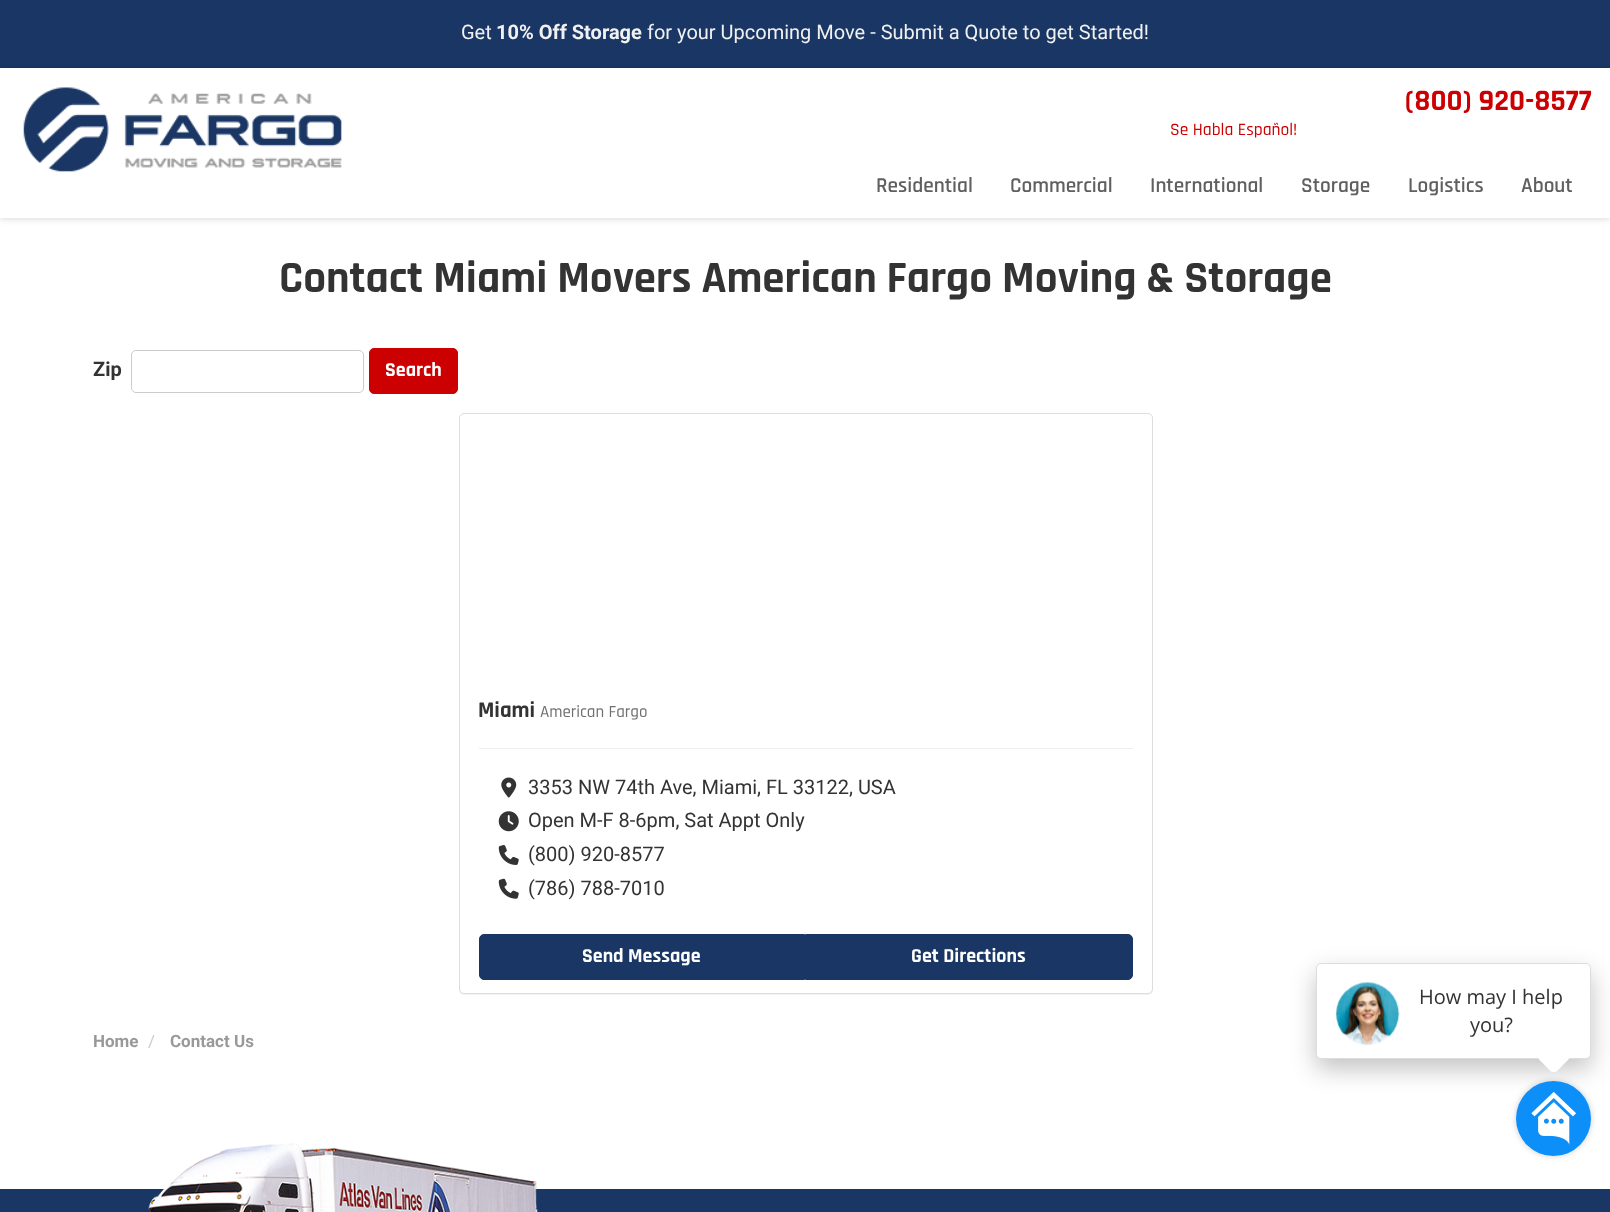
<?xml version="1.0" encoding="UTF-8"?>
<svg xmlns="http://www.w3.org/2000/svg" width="1610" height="1212">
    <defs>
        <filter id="blur1" x="-50%" y="-200%" width="200%" height="500%"><feGaussianBlur stdDeviation="3"/></filter>
        <filter id="blur2" x="-50%" y="-200%" width="200%" height="500%"><feGaussianBlur stdDeviation="0.5"/></filter>
        <filter id="blur3" x="-50%" y="-200%" width="200%" height="500%"><feGaussianBlur stdDeviation="12.5"/></filter>
    </defs>
    <rect width="100%" height="100%" fill="#FFFFFF"/>
    <rect x="0" y="0" width="1610" height="68" fill="#193664"/>
    <text x="461" y="39" font-family="Roboto" font-size="20" fill="#F1F1F1">Get</text>
    <text x="496" y="39" font-family="Roboto" font-size="20" font-weight="700" fill="#F1F1F1">10% Off Storage</text>
    <text x="647" y="39" font-family="Roboto" font-size="20" fill="#F1F1F1">for your Upcoming Move - Submit a Quote to get Started!</text>
    <rect x="0" y="69" width="1610" height="150" fill="#000000" fill-opacity="0.15" filter="url(#blur1)"/>
    <rect x="0" y="68" width="1610" height="150" fill="#FFFFFF"/>
    <image x="23" y="87" width="319" height="85" href="img_01.png"/>
    <text x="1405" y="110" font-family="Rajdhani" font-size="30" font-weight="700" fill="#CC0000">(800) 920-8577</text>
    <text x="876" y="192" font-family="Rajdhani" font-size="21.25" font-weight="600" fill="#606060">Residential</text>
    <text x="1010" y="192" font-family="Rajdhani" font-size="21.25" font-weight="600" fill="#606060">Commercial</text>
    <text x="1150" y="192" font-family="Rajdhani" font-size="21.25" font-weight="600" fill="#606060">International</text>
    <text x="1301" y="192" font-family="Rajdhani" font-size="21.25" font-weight="600" fill="#606060">Storage</text>
    <text x="1408" y="192" font-family="Rajdhani" font-size="21.25" font-weight="600" fill="#606060">Logistics</text>
    <text x="1521" y="192" font-family="Rajdhani" font-size="21.25" font-weight="600" fill="#606060">About</text>
    <text x="1170" y="135" font-family="Rajdhani" font-size="17.5" font-weight="500" fill="#CC0000">Se Habla Español!</text>
    <text x="279" y="292" font-family="Rajdhani" font-size="45" font-weight="700" fill="#333333">Contact Miami Movers American Fargo Moving &amp; Storage</text>
    <text x="93" y="376" font-family="Roboto" font-size="20" font-weight="700" fill="#333333">Zip</text>
    <rect x="131.5" y="350.5" width="232" height="42" rx="4.5" fill="none" stroke="#CCCCCC"/>
    <rect x="369.5" y="348.5" width="88" height="45" rx="4.5" fill="#CC0000" stroke="#CC0000"/>
    <text x="385" y="376" font-family="Rajdhani" font-size="20" font-weight="700" fill="#FFFFFF">Search</text>
    <rect x="459" y="414" width="694" height="581" rx="5" fill="#000000" fill-opacity="0.05" filter="url(#blur2)"/>
    <rect x="459.5" y="413.5" width="693" height="580" rx="4.5" fill="#FFFFFF" stroke="#DDDDDD"/>
    <text x="478" y="717" font-family="Rajdhani" font-size="22.5" font-weight="700" fill="#333333">Miami</text>
    <text x="540" y="717" font-family="Rajdhani" font-size="17" font-weight="500" fill="#707070">American Fargo</text>
    <rect x="479" y="748" width="654" height="1" fill="#EEEEEE"/>
    <image x="501" y="777" width="16" height="21" href="img_02.png"/>
    <text x="528" y="794" font-family="Roboto" font-size="20" fill="#333333">3353 NW 74th Ave, Miami, FL 33122, USA</text>
    <image x="498" y="811" width="21" height="21" href="img_03.png"/>
    <text x="528" y="827" font-family="Roboto" font-size="20" fill="#333333">Open M-F 8-6pm, Sat Appt Only</text>
    <image x="498" y="845" width="21" height="20" href="img_04.png"/>
    <text x="528" y="861" font-family="Roboto" font-size="20" fill="#333333">(800) 920-8577</text>
    <image x="498" y="878" width="21" height="21" href="img_05.png"/>
    <text x="528" y="895" font-family="Roboto" font-size="20" fill="#333333">(786) 788-7010</text>
    <path d="M 484 934.5 H 804.5 V 979.5 H 484 C 481.5 979.5 479.5 977.5 479.5 975 V 939 C 479.5 936.5 481.5 934.5 484 934.5 Z" fill="#193664" stroke="#193664"/>
    <text x="582" y="962" font-family="Rajdhani" font-size="20" font-weight="700" fill="#FFFFFF">Send Message</text>
    <path d="M 805.5 934.5 H 1128 C 1130.5 934.5 1132.5 936.5 1132.5 939 V 975 C 1132.5 977.5 1130.5 979.5 1128 979.5 H 805.5 Z" fill="#193664" stroke="#193664"/>
    <text x="911" y="962" font-family="Rajdhani" font-size="20" font-weight="700" fill="#FFFFFF">Get Directions</text>
    <rect x="1316" y="973" width="275" height="96" rx="5" fill="#000000" fill-opacity="0.24" filter="url(#blur3)"/>
    <rect x="1316.5" y="963.5" width="274" height="95" rx="4.5" fill="#FFFFFF" stroke="#DDDDDD"/>
    <image x="1336" y="982" width="64" height="64" href="img_06.png"/>
    <text x="1419" y="1004" font-family="Open Sans" font-size="20" fill="#333333">How may I help</text>
    <text x="1470" y="1032" font-family="Open Sans" font-size="20" fill="#333333">you?</text>
    <path d="M 1557.5 1042 L 1568 1052.5 C 1570 1054.5 1570 1058 1568 1060 L 1557.5 1070.5 C 1555.5 1072.5 1552 1072.5 1550 1070.5 L 1539.5 1060 C 1537.5 1058 1537.5 1054.5 1539.5 1052.5 L 1550 1042 C 1552 1040 1555.5 1040 1557.5 1042 Z" fill="#FFFFFF"/>
    <rect x="1516" y="1081" width="75" height="75" rx="37.5" fill="#000000" fill-opacity="0.2" filter="url(#blur1)"/>
    <circle cx="1553.5" cy="1118.5" r="37.5" fill="#0D8FF9"/>
    <image x="1531" y="1092" width="45" height="53" href="img_07.png"/>
    <text x="93" y="1047" font-family="Roboto" font-size="17" font-weight="700" fill="#999999">Home</text>
    <text x="148" y="1047" font-family="Roboto" font-size="17" fill="#CCCCCC">/</text>
    <text x="170" y="1047" font-family="Roboto" font-size="17" font-weight="700" fill="#999999">Contact Us</text>
    <rect x="0" y="1189" width="1610" height="23" fill="#193664"/>
    <image x="148" y="1143" width="390" height="69" href="img_08.png"/>
</svg>
